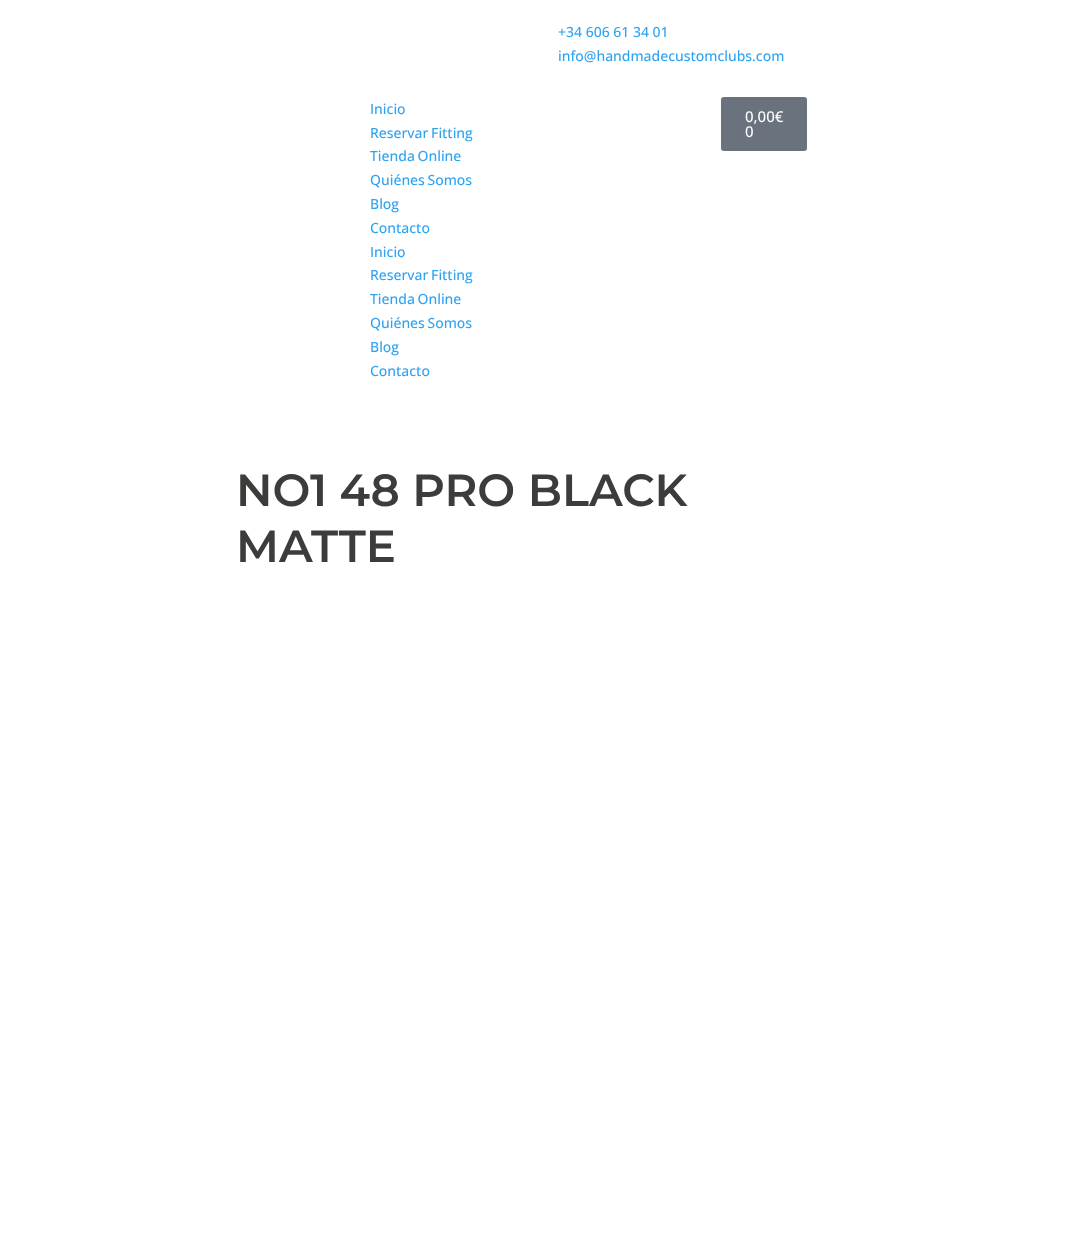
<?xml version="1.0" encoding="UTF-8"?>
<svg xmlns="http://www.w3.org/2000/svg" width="1071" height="1245">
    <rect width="100%" height="100%" fill="#FFFFFF"/>
    <text font-family="Open Sans" font-size="14" font-weight="500" fill="#2EA3F2">
        <tspan x="558" y="37">+34 606 61 34 01</tspan>
        <tspan x="558" y="61">info@handmadecustomclubs.com</tspan>
    </text>
    <text font-family="Open Sans" font-size="14" font-weight="500" fill="#2EA3F2">
        <tspan x="370" y="114">Inicio</tspan>
        <tspan x="370" y="138" word-spacing="-1">Reservar Fitting</tspan>
        <tspan x="370" y="161" word-spacing="-1">Tienda Online</tspan>
        <tspan x="370" y="185" word-spacing="-1">Quiénes Somos</tspan>
        <tspan x="370" y="209">Blog</tspan>
        <tspan x="370" y="233">Contacto</tspan>
        <tspan x="370" y="257">Inicio</tspan>
        <tspan x="370" y="280" word-spacing="-1">Reservar Fitting</tspan>
        <tspan x="370" y="304" word-spacing="-1">Tienda Online</tspan>
        <tspan x="370" y="328" word-spacing="-1">Quiénes Somos</tspan>
        <tspan x="370" y="352">Blog</tspan>
        <tspan x="370" y="376">Contacto</tspan>
    </text>
    <rect x="721" y="97" width="86" height="54" rx="3" fill="#69727D"/>
    <text font-family="Open Sans" font-size="15" font-weight="500" fill="#FFFFFF">
        <tspan x="745" y="122">0,00€</tspan>
        <tspan x="745" y="137">0</tspan>
    </text>
    <text font-family="Montserrat" font-size="45" font-weight="600" fill="#3C3C3B">
        <tspan x="236" y="506">NO1 48 PRO BLACK</tspan>
        <tspan x="236" y="562">MATTE</tspan>
    </text>
</svg>
